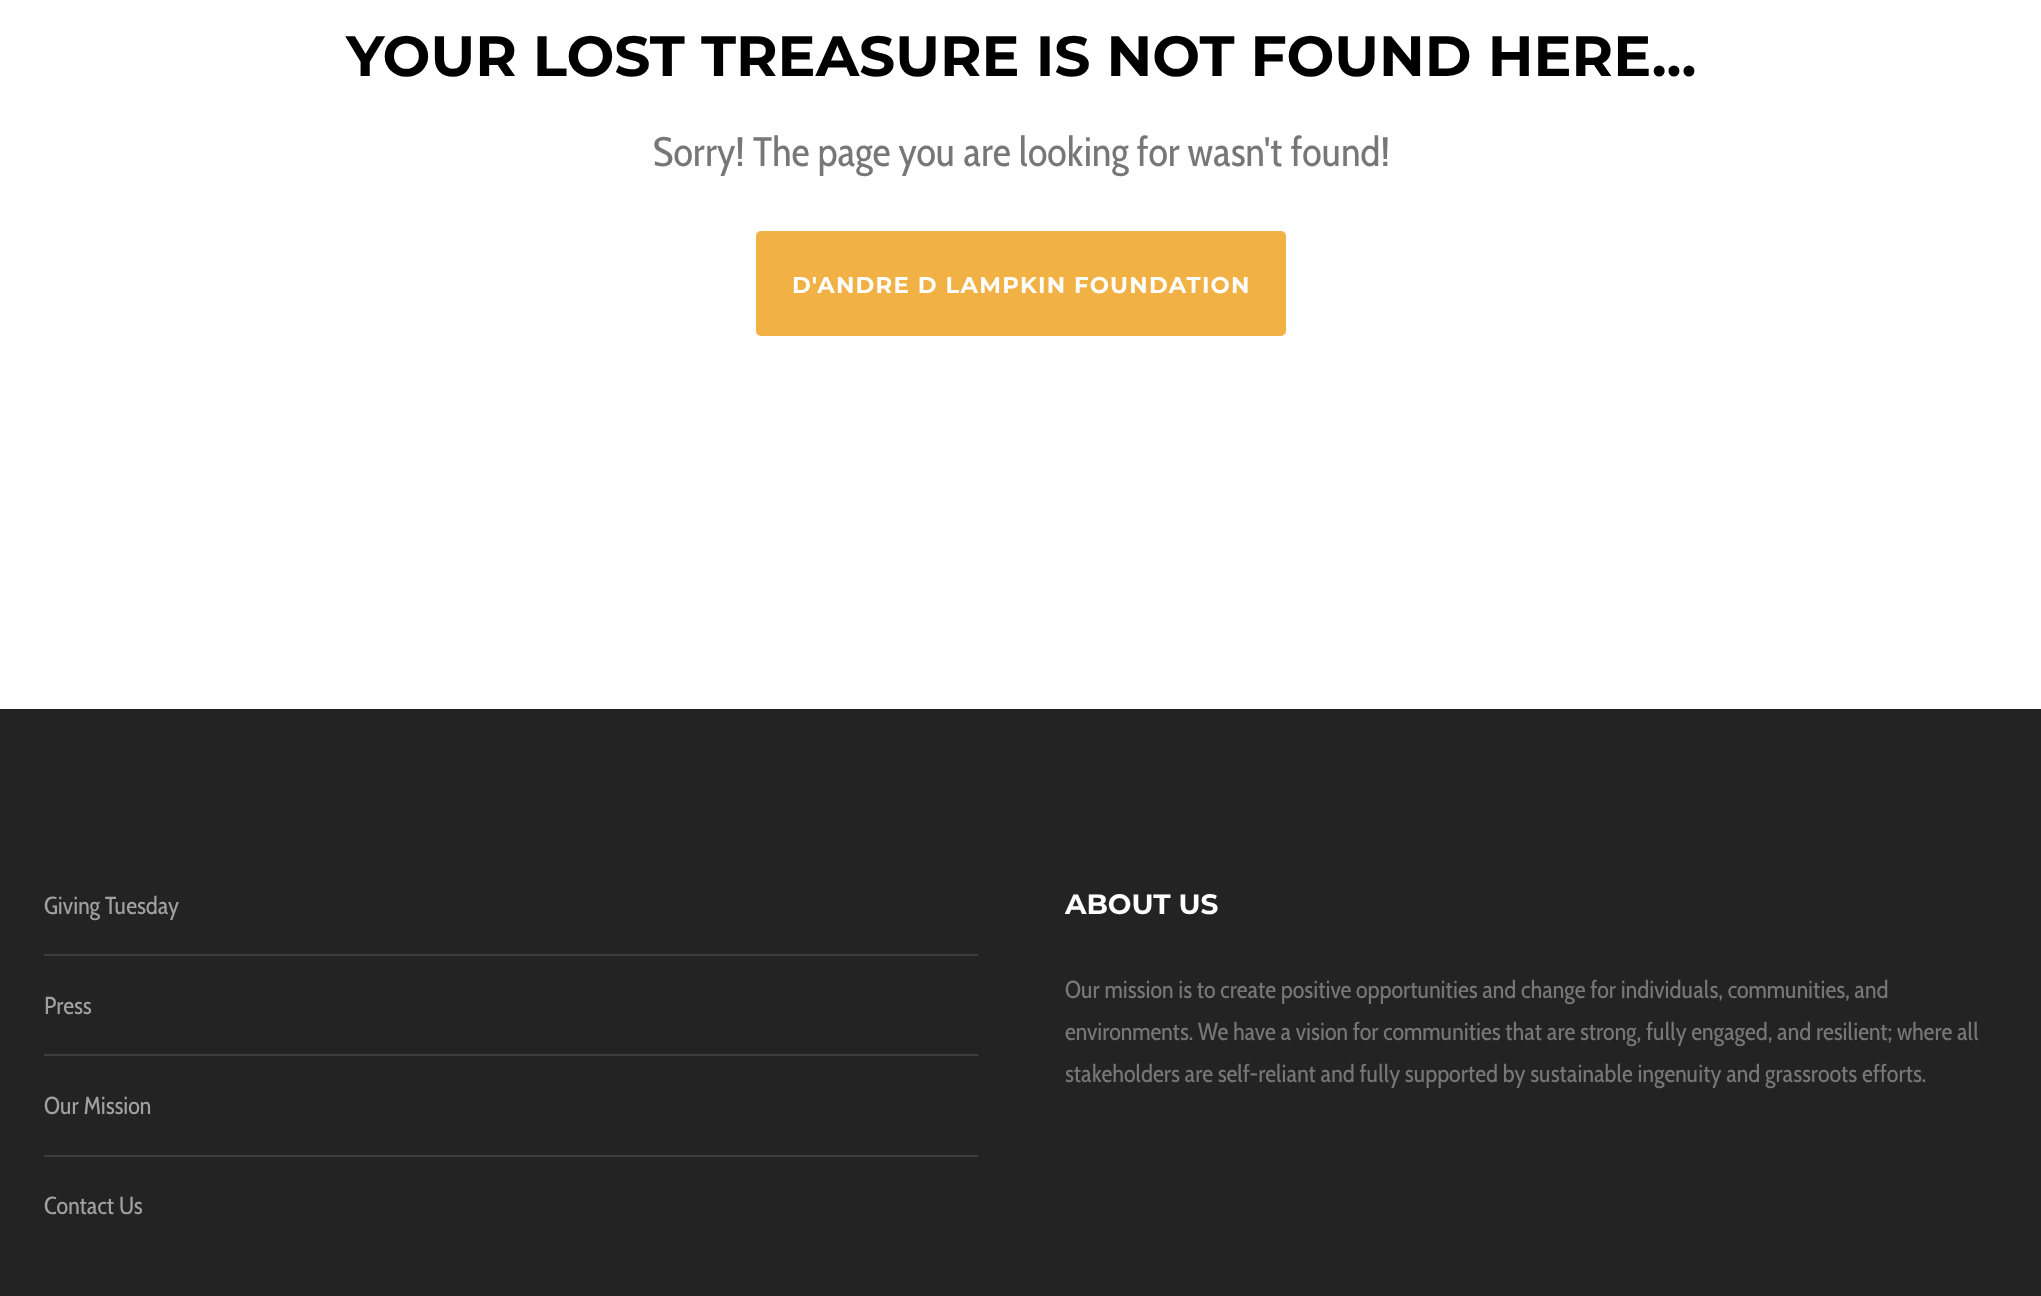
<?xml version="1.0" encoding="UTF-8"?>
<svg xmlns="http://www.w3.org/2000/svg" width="2041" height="1296">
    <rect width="100%" height="100%" fill="#FFFFFF"/>
    <text x="346" y="76" font-family="Montserrat" font-size="56.7" font-weight="700" fill="#000000">YOUR LOST TREASURE IS NOT FOUND HERE...</text>
    <text x="653" y="166" font-family="Cabin Condensed" font-size="41" fill="#777777">Sorry! The page you are looking for wasn't found!</text>
    <rect x="756" y="231" width="530" height="105" rx="5" fill="#F1B144"/>
    <text x="792" y="293" font-family="Montserrat" font-size="22.75" font-weight="700" letter-spacing="1.25" fill="#FFFFFF">D'ANDRE D LAMPKIN FOUNDATION</text>
    <rect x="0" y="709" width="2041" height="587" fill="#232323"/>
    <rect x="44" y="954" width="934" height="2" fill="#3E3E3E"/>
    <text x="44" y="914" font-family="Cabin Condensed" font-size="24.5" fill="#A0A0A0">Giving Tuesday</text>
    <rect x="44" y="1054" width="934" height="2" fill="#3E3E3E"/>
    <text x="44" y="1014" font-family="Cabin Condensed" font-size="24.5" fill="#A0A0A0">Press</text>
    <rect x="44" y="1155" width="934" height="2" fill="#3E3E3E"/>
    <text x="44" y="1114" font-family="Cabin Condensed" font-size="24.5" fill="#A0A0A0">Our Mission</text>
    <text x="44" y="1214" font-family="Cabin Condensed" font-size="24.5" fill="#A0A0A0">Contact Us</text>
    <text x="1065" y="914" font-family="Montserrat" font-size="28" font-weight="700" fill="#FFFFFF">ABOUT US</text>
    <text font-family="Cabin Condensed" font-size="24.5" fill="#777777">
        <tspan x="1065" y="998">Our mission is to create positive opportunities and change for individuals, communities, and</tspan>
        <tspan x="1065" y="1040">environments. We have a vision for communities that are strong, fully engaged, and resilient; where all</tspan>
        <tspan x="1065" y="1082">stakeholders are self-reliant and fully supported by sustainable ingenuity and grassroots efforts.</tspan>
    </text>
</svg>
